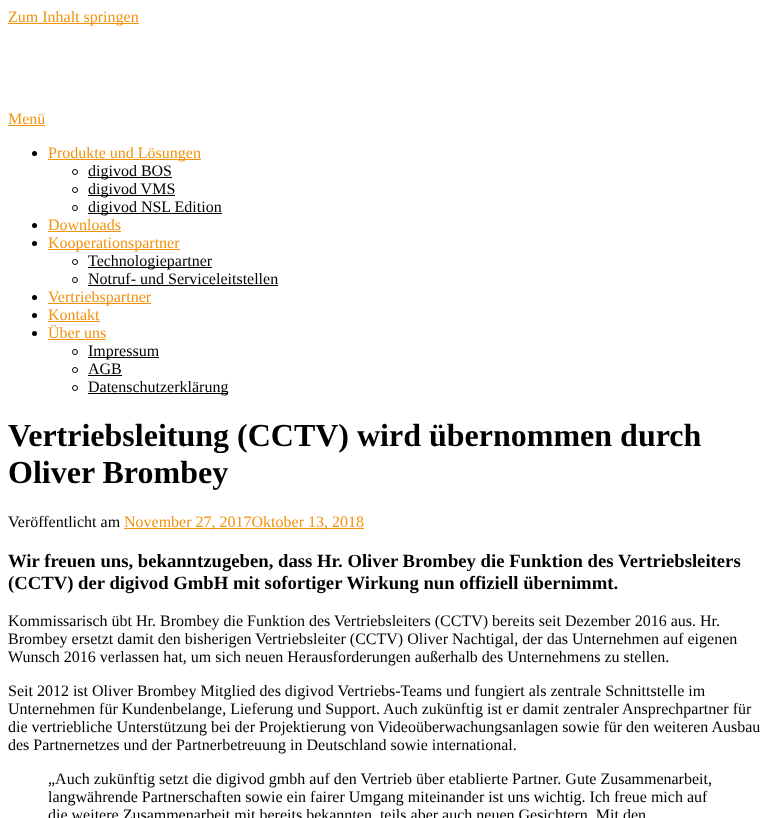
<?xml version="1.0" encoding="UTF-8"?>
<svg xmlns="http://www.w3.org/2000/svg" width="775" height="818">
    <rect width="100%" height="100%" fill="#FFFFFF"/>
    <rect x="8" y="23" width="131" height="1" fill="#F2920D"/>
    <text x="8" y="22" font-family="Liberation Serif" font-size="16" fill="#F2920D">Zum Inhalt springen</text>
    <text x="8" y="124" font-family="Liberation Serif" font-size="16" fill="#F2920D">Menü</text>
    <rect x="8" y="125" width="37" height="1" fill="#F2920D"/>
    <circle cx="34.5" cy="153.5" r="2.5" fill="#000000"/>
    <rect x="48" y="159" width="153" height="1" fill="#F2920D"/>
    <text x="48" y="158" font-family="Liberation Serif" font-size="16" fill="#F2920D">Produkte und Lösungen</text>
    <circle cx="75" cy="172" r="2.5" fill="none" stroke="#000000"/>
    <rect x="88" y="177" width="84" height="1" fill="#000000"/>
    <text x="88" y="176" font-family="Liberation Serif" font-size="16" fill="#000000">digivod BOS</text>
    <circle cx="75" cy="190" r="2.5" fill="none" stroke="#000000"/>
    <rect x="88" y="195" width="87" height="1" fill="#000000"/>
    <text x="88" y="194" font-family="Liberation Serif" font-size="16" fill="#000000">digivod VMS</text>
    <circle cx="75" cy="208" r="2.5" fill="none" stroke="#000000"/>
    <rect x="88" y="213" width="134" height="1" fill="#000000"/>
    <text x="88" y="212" font-family="Liberation Serif" font-size="16" fill="#000000">digivod NSL Edition</text>
    <circle cx="34.5" cy="225.5" r="2.5" fill="#000000"/>
    <text x="48" y="230" font-family="Liberation Serif" font-size="16" fill="#F2920D">Downloads</text>
    <rect x="48" y="231" width="73" height="1" fill="#F2920D"/>
    <circle cx="34.5" cy="243.5" r="2.5" fill="#000000"/>
    <rect x="48" y="249" width="132" height="1" fill="#F2920D"/>
    <text x="48" y="248" font-family="Liberation Serif" font-size="16" fill="#F2920D">Kooperationspartner</text>
    <circle cx="75" cy="262" r="2.5" fill="none" stroke="#000000"/>
    <rect x="88" y="267" width="124" height="1" fill="#000000"/>
    <text x="88" y="266" font-family="Liberation Serif" font-size="16" fill="#000000">Technologiepartner</text>
    <circle cx="75" cy="280" r="2.5" fill="none" stroke="#000000"/>
    <text x="88" y="284" font-family="Liberation Serif" font-size="16" fill="#000000">Notruf- und Serviceleitstellen</text>
    <rect x="88" y="285" width="190" height="1" fill="#000000"/>
    <circle cx="34.5" cy="297.5" r="2.5" fill="#000000"/>
    <rect x="48" y="303" width="103" height="1" fill="#F2920D"/>
    <text x="48" y="302" font-family="Liberation Serif" font-size="16" fill="#F2920D">Vertriebspartner</text>
    <circle cx="34.5" cy="315.5" r="2.5" fill="#000000"/>
    <text x="48" y="320" font-family="Liberation Serif" font-size="16" fill="#F2920D">Kontakt</text>
    <rect x="48" y="321" width="52" height="1" fill="#F2920D"/>
    <circle cx="34.5" cy="333.5" r="2.5" fill="#000000"/>
    <text x="48" y="338" font-family="Liberation Serif" font-size="16" fill="#F2920D">Über uns</text>
    <rect x="48" y="339" width="58" height="1" fill="#F2920D"/>
    <circle cx="75" cy="352" r="2.5" fill="none" stroke="#000000"/>
    <rect x="88" y="357" width="71" height="1" fill="#000000"/>
    <text x="88" y="356" font-family="Liberation Serif" font-size="16" fill="#000000">Impressum</text>
    <circle cx="75" cy="370" r="2.5" fill="none" stroke="#000000"/>
    <text x="88" y="374" font-family="Liberation Serif" font-size="16" fill="#000000">AGB</text>
    <rect x="88" y="375" width="34" height="1" fill="#000000"/>
    <circle cx="75" cy="388" r="2.5" fill="none" stroke="#000000"/>
    <rect x="88" y="393" width="140" height="1" fill="#000000"/>
    <text x="88" y="392" font-family="Liberation Serif" font-size="16" fill="#000000">Datenschutzerklärung</text>
    <text font-family="Liberation Serif" font-size="32" font-weight="700" fill="#000000">
        <tspan x="8" y="446">Vertriebsleitung (CCTV) wird übernommen durch</tspan>
        <tspan x="8" y="483">Oliver Brombey</tspan>
    </text>
    <text x="8" y="527" font-family="Liberation Serif" font-size="16" fill="#000000">Veröffentlicht am</text>
    <rect x="124" y="528" width="240" height="1" fill="#F2920D"/>
    <text x="124" y="527" font-family="Liberation Serif" font-size="16" fill="#F2920D">November 27, 2017Oktober 13, 2018</text>
    <text font-family="Liberation Serif" font-size="18.7" font-weight="700" fill="#000000">
        <tspan x="8" y="567">Wir freuen uns, bekanntzugeben, dass Hr. Oliver Brombey die Funktion des Vertriebsleiters</tspan>
        <tspan x="8" y="589">(CCTV) der digivod GmbH mit sofortiger Wirkung nun offiziell übernimmt.</tspan>
    </text>
    <text font-family="Liberation Serif" font-size="16" fill="#000000">
        <tspan x="8" y="626">Kommissarisch übt Hr. Brombey die Funktion des Vertriebsleiters (CCTV) bereits seit Dezember 2016 aus. Hr.</tspan>
        <tspan x="8" y="644">Brombey ersetzt damit den bisherigen Vertriebsleiter (CCTV) Oliver Nachtigal, der das Unternehmen auf eigenen</tspan>
        <tspan x="8" y="662">Wunsch 2016 verlassen hat, um sich neuen Herausforderungen außerhalb des Unternehmens zu stellen.</tspan>
    </text>
    <text font-family="Liberation Serif" font-size="16" fill="#000000">
        <tspan x="8" y="696">Seit 2012 ist Oliver Brombey Mitglied des digivod Vertriebs-Teams und fungiert als zentrale Schnittstelle im</tspan>
        <tspan x="8" y="714">Unternehmen für Kundenbelange, Lieferung und Support. Auch zukünftig ist er damit zentraler Ansprechpartner für</tspan>
        <tspan x="8" y="732">die vertriebliche Unterstützung bei der Projektierung von Videoüberwachungsanlagen sowie für den weiteren Ausbau</tspan>
        <tspan x="8" y="750">des Partnernetzes und der Partnerbetreuung in Deutschland sowie international.</tspan>
    </text>
    <text font-family="Liberation Serif" font-size="16" fill="#000000">
        <tspan x="48" y="784">„Auch zukünftig setzt die digivod gmbh auf den Vertrieb über etablierte Partner. Gute Zusammenarbeit,</tspan>
        <tspan x="48" y="802">langwährende Partnerschaften sowie ein fairer Umgang miteinander ist uns wichtig. Ich freue mich auf</tspan>
        <tspan x="48" y="820">die weitere Zusammenarbeit mit bereits bekannten, teils aber auch neuen Gesichtern. Mit den</tspan>
    </text>
</svg>
